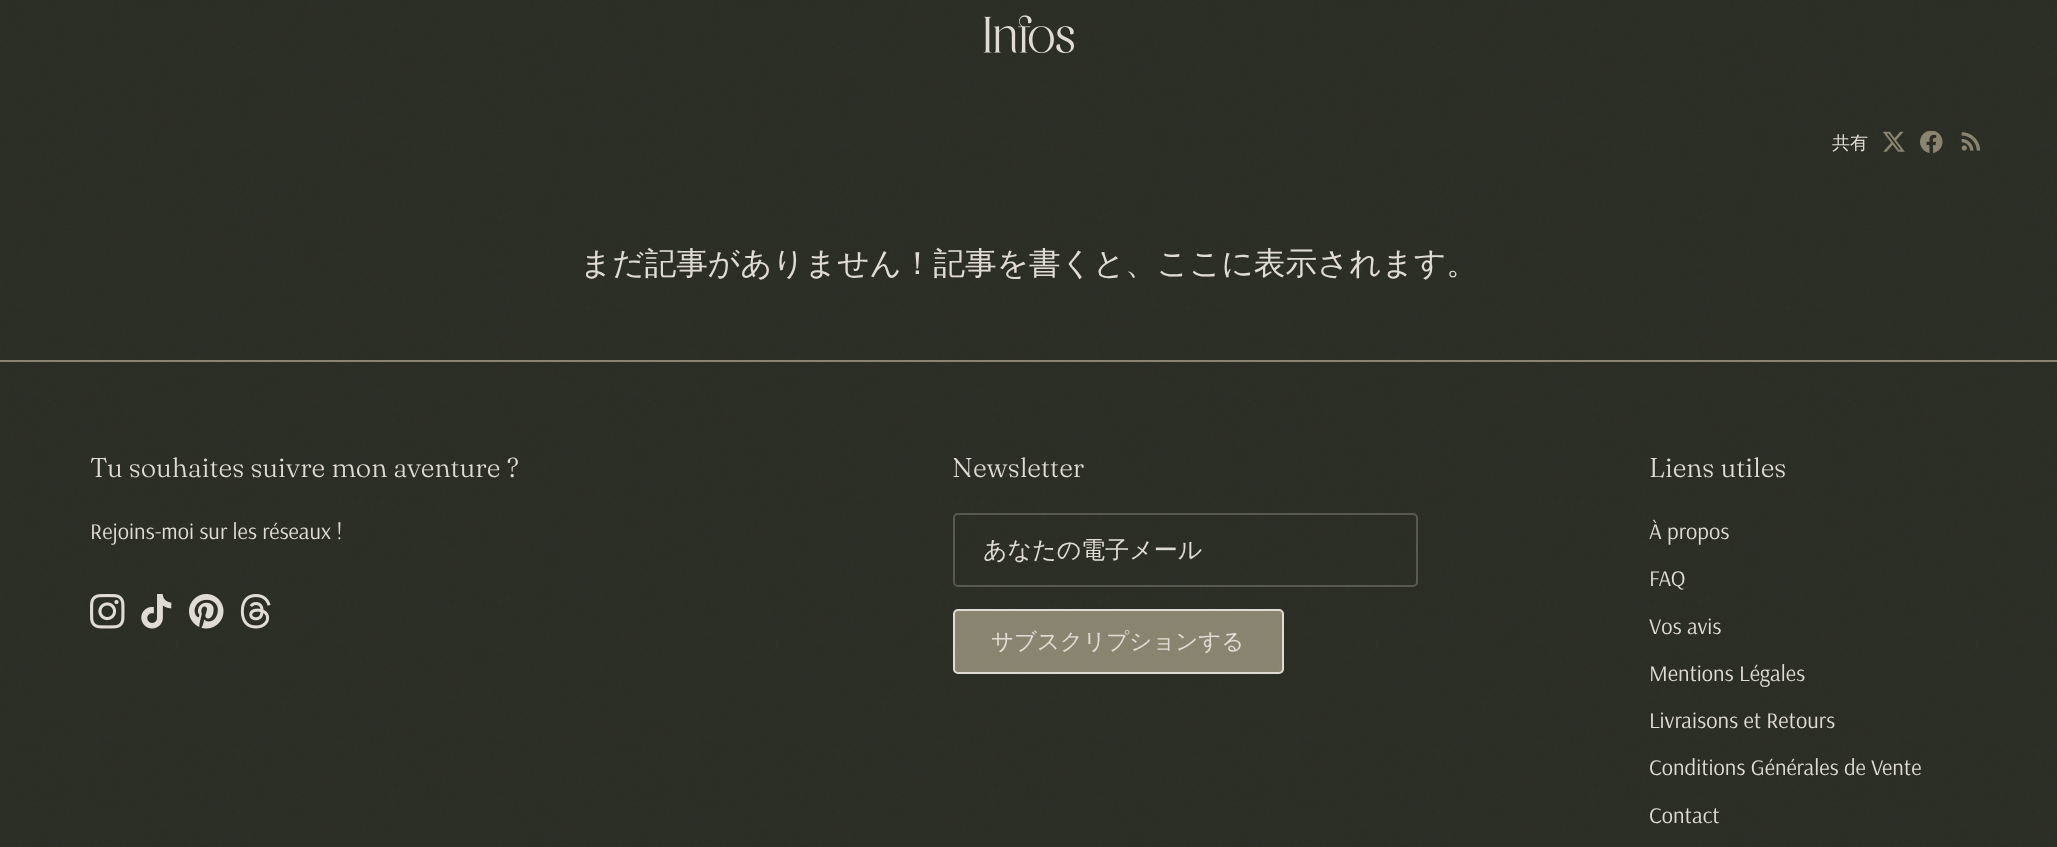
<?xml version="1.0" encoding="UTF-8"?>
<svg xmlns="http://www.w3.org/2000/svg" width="2057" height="847">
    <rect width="100%" height="100%" fill="#25281F"/>
    <image x="983" y="15" width="91" height="39" href="img_02.png"/>
    <text x="1832" y="149" font-family="WenQuanYi Zen Hei" font-size="18" font-weight="500" fill="#E2DED7">共有</text>
    <image x="1883" y="131" width="22" height="21" href="img_03.png"/>
    <image x="1920" y="131" width="23" height="22" href="img_04.png"/>
    <image x="1961" y="132" width="20" height="19" href="img_05.png"/>
    <text x="580" y="274" font-family="WenQuanYi Zen Hei" font-size="31.6" font-weight="500" fill="#E2DED7">まだ記事がありません！記事を書くと、ここに表示されます。</text>
    <rect x="0" y="360" width="2057" height="2" fill="#87826E"/>
    <text x="90" y="477" font-family="Fraunces" font-size="27" font-weight="300" fill="#E2DED7">Tu souhaites suivre mon aventure ?</text>
    <text x="90" y="539" font-family="Arsenal" font-size="22.5" fill="#E2DED7">Rejoins-moi sur les réseaux !</text>
    <image x="90" y="594" width="35" height="35" href="img_06.png"/>
    <image x="141" y="594" width="31" height="35" href="img_07.png"/>
    <image x="189" y="594" width="35" height="35" href="img_08.png"/>
    <image x="240" y="594" width="31" height="35" href="img_09.png"/>
    <text x="952" y="477" font-family="Fraunces" font-size="27" font-weight="300" fill="#E2DED7">Newsletter</text>
    <rect x="954" y="514" width="463" height="72" rx="4" fill="none" stroke="#54564D" stroke-width="2"/>
    <text x="983" y="558" font-family="WenQuanYi Zen Hei" font-size="24" font-weight="500" fill="#E2DED7">あなたの電子メール</text>
    <rect x="954" y="610" width="329" height="63" rx="4" fill="#87826E" stroke="#E2DED7" stroke-width="2"/>
    <text x="991" y="649" font-family="WenQuanYi Zen Hei" font-size="22.5" font-weight="500" fill="#E2DED7">サブスクリプションする</text>
    <text x="1649" y="477" font-family="Fraunces" font-size="27" font-weight="300" fill="#E2DED7">Liens utiles</text>
    <text x="1649" y="539" font-family="Arsenal" font-size="22.5" fill="#E2DED7">À propos</text>
    <text x="1649" y="586" font-family="Arsenal" font-size="22.5" fill="#E2DED7">FAQ</text>
    <text x="1649" y="634" font-family="Arsenal" font-size="22.5" fill="#E2DED7">Vos avis</text>
    <text x="1649" y="681" font-family="Arsenal" font-size="22.5" fill="#E2DED7">Mentions Légales</text>
    <text x="1649" y="728" font-family="Arsenal" font-size="22.5" fill="#E2DED7">Livraisons et Retours</text>
    <text x="1649" y="775" font-family="Arsenal" font-size="22.5" fill="#E2DED7">Conditions Générales de Vente</text>
    <text x="1649" y="823" font-family="Arsenal" font-size="22.5" fill="#E2DED7">Contact</text>
    <image x="0" y="0" width="2057" height="847" href="img_01.png"/>
</svg>
